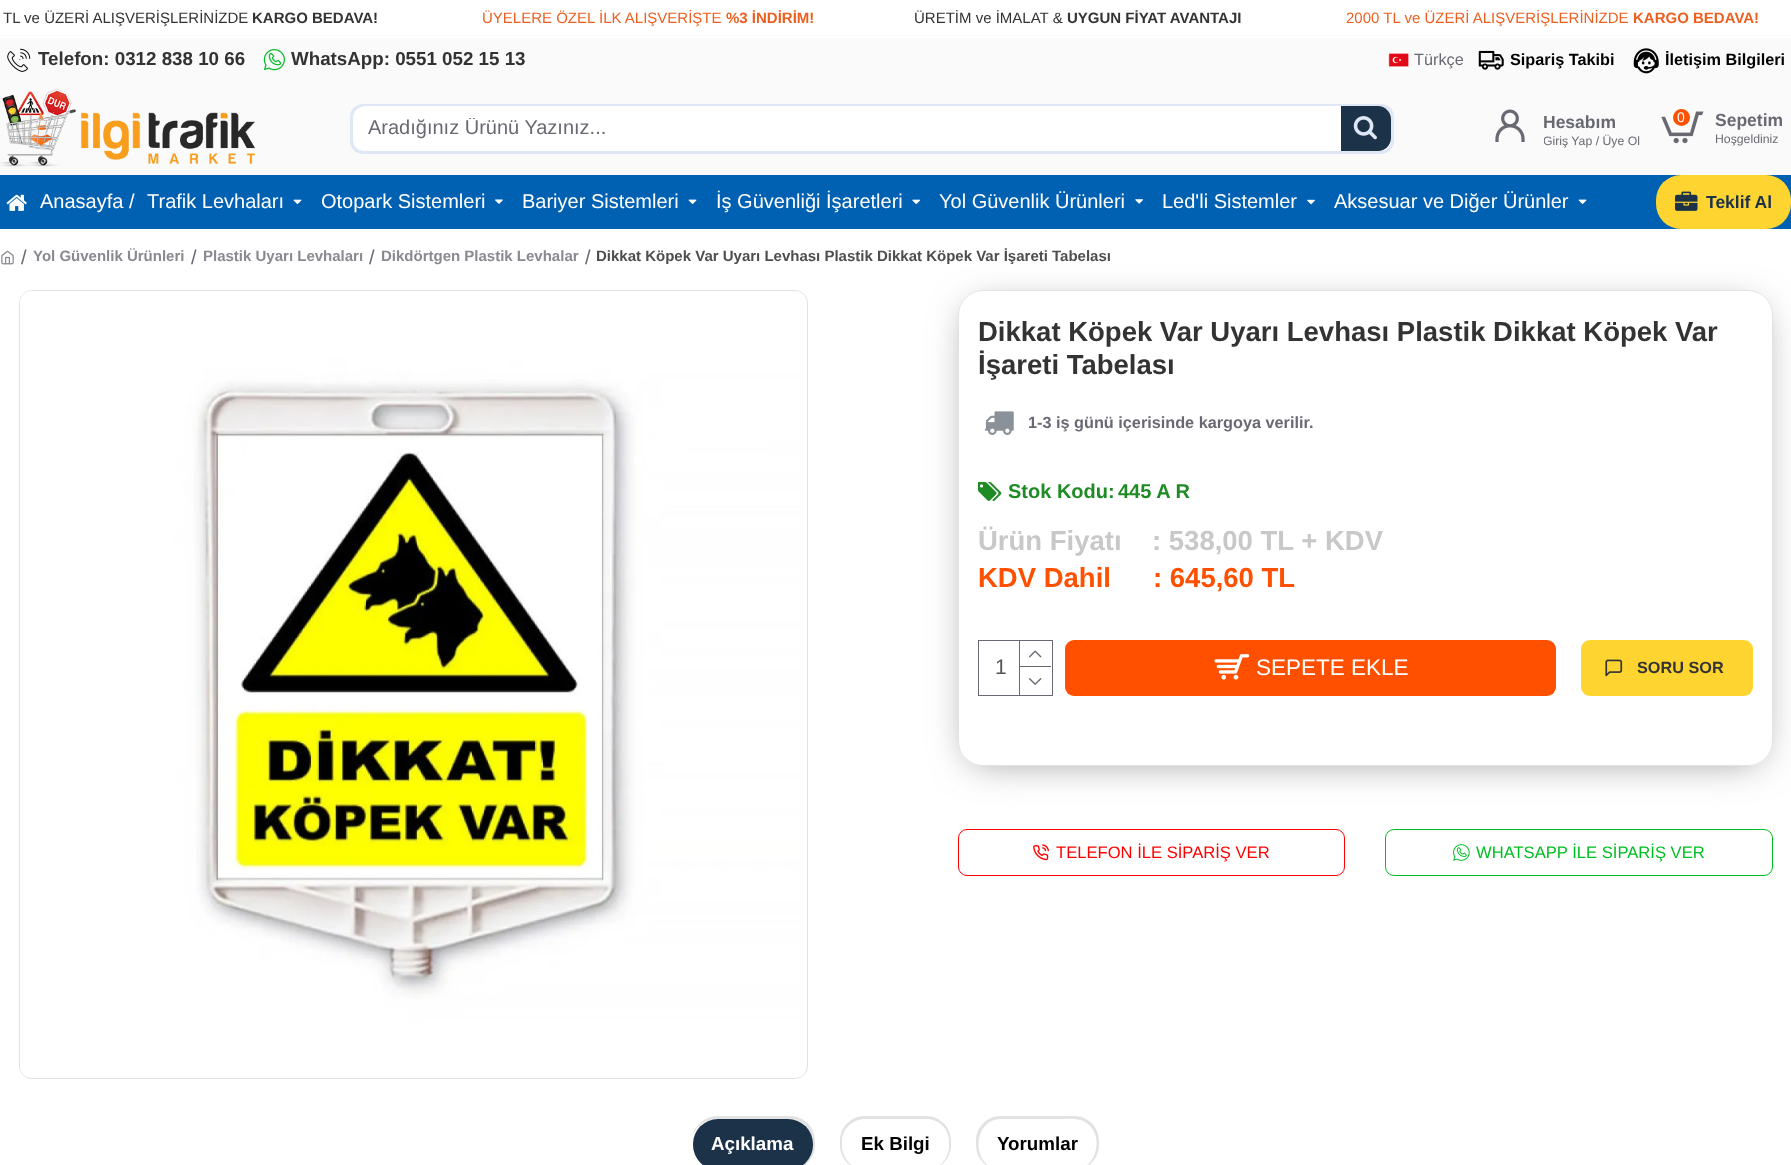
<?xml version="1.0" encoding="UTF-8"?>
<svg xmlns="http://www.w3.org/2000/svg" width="1791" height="1165">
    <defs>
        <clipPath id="clip1"><rect x="368" y="118" width="958" height="22"/></clipPath>
        <clipPath id="clip2"><rect x="1544" y="109" width="96" height="39"/></clipPath>
        <clipPath id="clip3"><path d="M 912 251 H 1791 V 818 H 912 Z M 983 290 H 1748 C 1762 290 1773 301 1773 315 V 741 C 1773 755 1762 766 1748 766 H 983 C 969 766 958 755 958 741 V 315 C 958 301 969 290 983 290 Z" clip-rule="evenodd"/></clipPath>
        <filter id="blur1" x="-50%" y="-200%" width="200%" height="500%"><feGaussianBlur stdDeviation="19"/></filter>
    </defs>
    <rect width="100%" height="100%" fill="#FFFFFF"/>
    <rect x="0" y="35" width="1791" height="1" fill="#FAFAFA"/>
    <text x="3" y="23" font-family="Liberation Sans" font-size="15" fill="#333333">TL ve ÜZERİ ALIŞVERİŞLERİNİZDE</text>
    <text x="252" y="23" font-family="Liberation Sans" font-size="15" font-weight="700" fill="#333333">KARGO BEDAVA!</text>
    <text x="482" y="23" font-family="Liberation Sans" font-size="15" fill="#ED5F1F">ÜYELERE ÖZEL İLK ALIŞVERİŞTE</text>
    <text x="726" y="23" font-family="Liberation Sans" font-size="15" font-weight="700" fill="#ED5F1F">%3 İNDİRİM!</text>
    <text x="914" y="23" font-family="Liberation Sans" font-size="15" fill="#333333">ÜRETİM ve İMALAT &amp;</text>
    <text x="1067" y="23" font-family="Liberation Sans" font-size="15" font-weight="700" fill="#333333">UYGUN FİYAT AVANTAJI</text>
    <text x="1346" y="23" font-family="Liberation Sans" font-size="15" fill="#ED5F1F">2000 TL ve ÜZERİ ALIŞVERİŞLERİNİZDE</text>
    <text x="1633" y="23" font-family="Liberation Sans" font-size="15" font-weight="700" fill="#ED5F1F">KARGO BEDAVA!</text>
    <rect x="0" y="38" width="1791" height="137" fill="#FAFAFA"/>
    <image x="7" y="48" width="24" height="24" href="img_01.png"/>
    <text x="38" y="65" font-family="Liberation Sans" font-size="18.75" font-weight="700" fill="#333333">Telefon: 0312 838 10 66</text>
    <image x="263" y="49" width="22" height="22" href="img_02.png"/>
    <text x="291" y="65" font-family="Liberation Sans" font-size="18.75" font-weight="700" fill="#333333">WhatsApp: 0551 052 15 13</text>
    <image x="1388" y="53" width="21" height="14" href="img_03.png"/>
    <text x="1414" y="65" font-family="Liberation Sans" font-size="16.25" fill="#696973">Türkçe</text>
    <image x="1478" y="50" width="26" height="20" href="img_04.png"/>
    <text x="1510" y="65" font-family="Liberation Sans" font-size="16.25" font-weight="700" fill="#000000">Sipariş Takibi</text>
    <image x="1633" y="48" width="26" height="26" href="img_05.png"/>
    <text x="1665" y="65" font-family="Liberation Sans" font-size="16.25" font-weight="700" fill="#000000">İletişim Bilgileri</text>
    <image x="0" y="88" width="255" height="79" href="img_06.png"/>
    <rect x="351.5" y="105.5" width="1041" height="47" rx="11.5" fill="none" stroke="#DFE7F6" stroke-width="3"/>
    <path d="M 366 106 H 1341 V 151 H 366 C 359 151 353 145 353 138 V 119 C 353 112 359 106 366 106 Z" fill="#FFFFFF"/>
    <g clip-path="url(#clip1)">
        <text x="368" y="134" font-family="Liberation Sans" font-size="20" fill="#696973">Aradığınız Ürünü Yazınız...</text>
    </g>
    <path d="M 1341 106 H 1378 C 1385 106 1391 112 1391 119 V 138 C 1391 145 1385 151 1378 151 H 1341 Z" fill="#1C3249"/>
    <image x="1353" y="116" width="24" height="24" href="img_07.png"/>
    <image x="1495" y="109" width="30" height="33" href="img_08.png"/>
    <text x="1543" y="128" font-family="Liberation Sans" font-size="17.5" font-weight="700" fill="#696973">Hesabım</text>
    <g clip-path="url(#clip2)">
        <text x="1543" y="145" font-family="Liberation Sans" font-size="12.25" fill="#696973">Giriş Yap / Üye Ol</text>
    </g>
    <image x="1661" y="111" width="43" height="33" href="img_09.png"/>
    <circle cx="1681.5" cy="117.5" r="10" fill="#FF5000" stroke="#FFFFFF" stroke-width="3"/>
    <text x="1677" y="122" font-family="Liberation Sans" font-size="14" fill="#FFFFFF">0</text>
    <text x="1715" y="126" font-family="Liberation Sans" font-size="17.5" font-weight="700" fill="#696973">Sepetim</text>
    <text x="1715" y="143" font-family="Liberation Sans" font-size="12.25" fill="#696973">Hoşgeldiniz</text>
    <rect x="0" y="175" width="1791" height="54" fill="#0060B2"/>
    <image x="6" y="194" width="21" height="17" href="img_10.png"/>
    <text x="40" y="208" font-family="Liberation Sans" font-size="20" fill="#FFFFFF">Anasayfa /</text>
    <text x="147" y="208" font-family="Liberation Sans" font-size="20" fill="#FFFFFF">Trafik Levhaları</text>
    <image x="293" y="199" width="9" height="6" href="img_11.png"/>
    <text x="321" y="208" font-family="Liberation Sans" font-size="20" fill="#FFFFFF">Otopark Sistemleri</text>
    <image x="495" y="199" width="8" height="5" href="img_12.png"/>
    <text x="522" y="208" font-family="Liberation Sans" font-size="20" fill="#FFFFFF">Bariyer Sistemleri</text>
    <image x="688" y="199" width="9" height="5" href="img_13.png"/>
    <text x="716" y="208" font-family="Liberation Sans" font-size="20" fill="#FFFFFF">İş Güvenliği İşaretleri</text>
    <image x="912" y="199" width="9" height="6" href="img_14.png"/>
    <text x="939" y="208" font-family="Liberation Sans" font-size="20" fill="#FFFFFF">Yol Güvenlik Ürünleri</text>
    <image x="1135" y="199" width="9" height="5" href="img_15.png"/>
    <text x="1162" y="208" font-family="Liberation Sans" font-size="20" fill="#FFFFFF">Led'li Sistemler</text>
    <image x="1307" y="199" width="8" height="6" href="img_16.png"/>
    <text x="1334" y="208" font-family="Liberation Sans" font-size="20" fill="#FFFFFF">Aksesuar ve Diğer Ürünler</text>
    <image x="1578" y="199" width="9" height="5" href="img_13.png"/>
    <rect x="1656" y="175" width="135" height="54" rx="25" fill="#FED430"/>
    <image x="1675" y="191" width="23" height="20" href="img_17.png"/>
    <text x="1706" y="208" font-family="Liberation Sans" font-size="17.5" font-weight="700" fill="#1C3249">Teklif Al</text>
    <image x="1" y="250" width="13" height="15" href="img_18.png"/>
    <text x="21" y="264" font-family="Liberation Sans" font-size="20" fill="#696973">/</text>
    <text x="33" y="261" font-family="Liberation Sans" font-size="15" font-weight="700" fill="#898990">Yol Güvenlik Ürünleri</text>
    <text x="191" y="264" font-family="Liberation Sans" font-size="20" fill="#696973">/</text>
    <text x="203" y="261" font-family="Liberation Sans" font-size="15" font-weight="700" fill="#898990">Plastik Uyarı Levhaları</text>
    <text x="369" y="264" font-family="Liberation Sans" font-size="20" fill="#696973">/</text>
    <text x="381" y="261" font-family="Liberation Sans" font-size="15" font-weight="700" fill="#898990">Dikdörtgen Plastik Levhalar</text>
    <text x="585" y="264" font-family="Liberation Sans" font-size="20" fill="#696973">/</text>
    <text x="596" y="261" font-family="Liberation Sans" font-size="15" font-weight="700" fill="#4E4E4E">Dikkat Köpek Var Uyarı Levhası Plastik Dikkat Köpek Var İşareti Tabelası</text>
    <rect x="19.5" y="290.5" width="788" height="788" rx="12.5" fill="none" stroke="#E2E2E2"/>
    <image x="20" y="291" width="781" height="786" href="img_19.png"/>
    <g clip-path="url(#clip3)">
        <rect x="970" y="309" width="790" height="451" rx="13" fill="#8D8D8D" filter="url(#blur1)"/>
    </g>
    <rect x="958.5" y="290.5" width="814" height="475" rx="24.5" fill="none" stroke="#E2E2E2"/>
    <text font-family="Liberation Sans" font-size="27.5" font-weight="700" fill="#333333">
        <tspan x="978" y="341">Dikkat Köpek Var Uyarı Levhası Plastik Dikkat Köpek Var</tspan>
        <tspan x="978" y="374">İşareti Tabelası</tspan>
    </text>
    <image x="984" y="411" width="30" height="24" href="img_20.png"/>
    <text x="1028" y="428" font-family="Liberation Sans" font-size="16.25" font-weight="700" fill="#696973">1-3 iş günü içerisinde kargoya verilir.</text>
    <image x="978" y="481" width="24" height="20" href="img_21.png"/>
    <text x="1008" y="498" font-family="Liberation Sans" font-size="20" font-weight="700" fill="#1F8B25">Stok Kodu:</text>
    <text x="1118" y="498" font-family="Liberation Sans" font-size="20" font-weight="700" fill="#1F8B25">445 A R</text>
    <text x="978" y="550" font-family="Liberation Sans" font-size="27.5" font-weight="700" fill="#C8C8C8">Ürün Fiyatı</text>
    <text x="1152" y="550" font-family="Liberation Sans" font-size="27.5" font-weight="700" fill="#C8C8C8">: 538,00 TL + KDV</text>
    <text x="978" y="587" font-family="Liberation Sans" font-size="27.5" font-weight="700" fill="#FF5000">KDV Dahil</text>
    <text x="1153" y="587" font-family="Liberation Sans" font-size="27.5" font-weight="700" fill="#FF5000">: 645,60 TL</text>
    <rect x="978.5" y="640.5" width="74" height="55" fill="none" stroke="#696973"/>
    <text x="995" y="674" font-family="Liberation Sans" font-size="21" fill="#555555">1</text>
    <rect x="1019" y="641" width="1" height="54" fill="#696973"/>
    <rect x="1020" y="666" width="31" height="1" fill="#696973"/>
    <image x="1029" y="650" width="13" height="8" href="img_22.png"/>
    <image x="1029" y="678" width="13" height="7" href="img_23.png"/>
    <rect x="1065" y="640" width="491" height="56" rx="9" fill="#FF5000"/>
    <image x="1214" y="654" width="36" height="26" href="img_24.png"/>
    <text x="1256" y="675" font-family="Liberation Sans" font-size="22.5" fill="#FFFFFF">SEPETE EKLE</text>
    <rect x="1581" y="640" width="172" height="56" rx="9" fill="#FED430"/>
    <image x="1605" y="659" width="18" height="18" href="img_25.png"/>
    <text x="1637" y="673" font-family="Liberation Sans" font-size="16.25" font-weight="700" fill="#333333">SORU SOR</text>
    <rect x="958.5" y="829.5" width="386" height="46" rx="8.5" fill="none" stroke="#FF0000"/>
    <image x="1033" y="844" width="16" height="17" href="img_26.png"/>
    <text x="1056" y="858" font-family="Liberation Sans" font-size="16.6" fill="#FF0000">TELEFON İLE SİPARİŞ VER</text>
    <rect x="1385.5" y="829.5" width="387" height="46" rx="8.5" fill="none" stroke="#00BF22"/>
    <image x="1453" y="844" width="17" height="17" href="img_27.png"/>
    <text x="1476" y="858" font-family="Liberation Sans" font-size="16.6" fill="#00BF22">WHATSAPP İLE SİPARİŞ VER</text>
    <path d="M 718 1116 H 790 C 804 1116 815 1127 815 1141 V 1145 C 815 1159 804 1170 790 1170 H 718 C 704 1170 692 1159 692 1145 V 1141 C 692 1127 704 1116 718 1116 Z M 718 1119 H 790 C 802 1119 812 1129 812 1141 V 1145 C 812 1159 802 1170 790 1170 H 718 C 704 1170 692 1159 692 1145 V 1141 C 692 1129 704 1119 718 1119 Z" fill="#E2E2E2" fill-rule="evenodd"/>
    <rect x="693" y="1119" width="120" height="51" rx="25" fill="#1C3249"/>
    <text x="711" y="1150" font-family="Liberation Sans" font-size="18.75" font-weight="700" fill="#FFFFFF">Açıklama</text>
    <path d="M 865 1116 H 926 C 940 1116 951 1127 951 1141 V 1145 C 951 1159 940 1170 926 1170 H 865 C 851 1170 840 1159 840 1145 V 1141 C 840 1127 851 1116 865 1116 Z M 865 1119 H 926 C 939 1119 949 1129 949 1141 V 1145 C 949 1159 939 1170 926 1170 H 865 C 853 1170 842 1159 842 1145 V 1141 C 842 1129 853 1119 865 1119 Z" fill="#E2E2E2" fill-rule="evenodd"/>
    <rect x="843" y="1119" width="106" height="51" rx="25" fill="#FFFFFF"/>
    <text x="861" y="1150" font-family="Liberation Sans" font-size="18.75" font-weight="700" fill="#000000">Ek Bilgi</text>
    <path d="M 1001 1116 H 1074 C 1088 1116 1099 1127 1099 1141 V 1145 C 1099 1159 1088 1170 1074 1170 H 1001 C 987 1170 976 1159 976 1145 V 1141 C 976 1127 987 1116 1001 1116 Z M 1001 1119 H 1062 C 1068 1119 1076 1118 1083 1121 C 1105 1130 1099 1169 1074 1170 H 1013 C 1007 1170 999 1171 992 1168 C 971 1158 975 1119 1001 1119 Z" fill="#E2E2E2" fill-rule="evenodd"/>
    <rect x="979" y="1119" width="117" height="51" rx="25" fill="#FFFFFF"/>
    <text x="997" y="1150" font-family="Liberation Sans" font-size="18.75" font-weight="700" fill="#000000">Yorumlar</text>
</svg>
